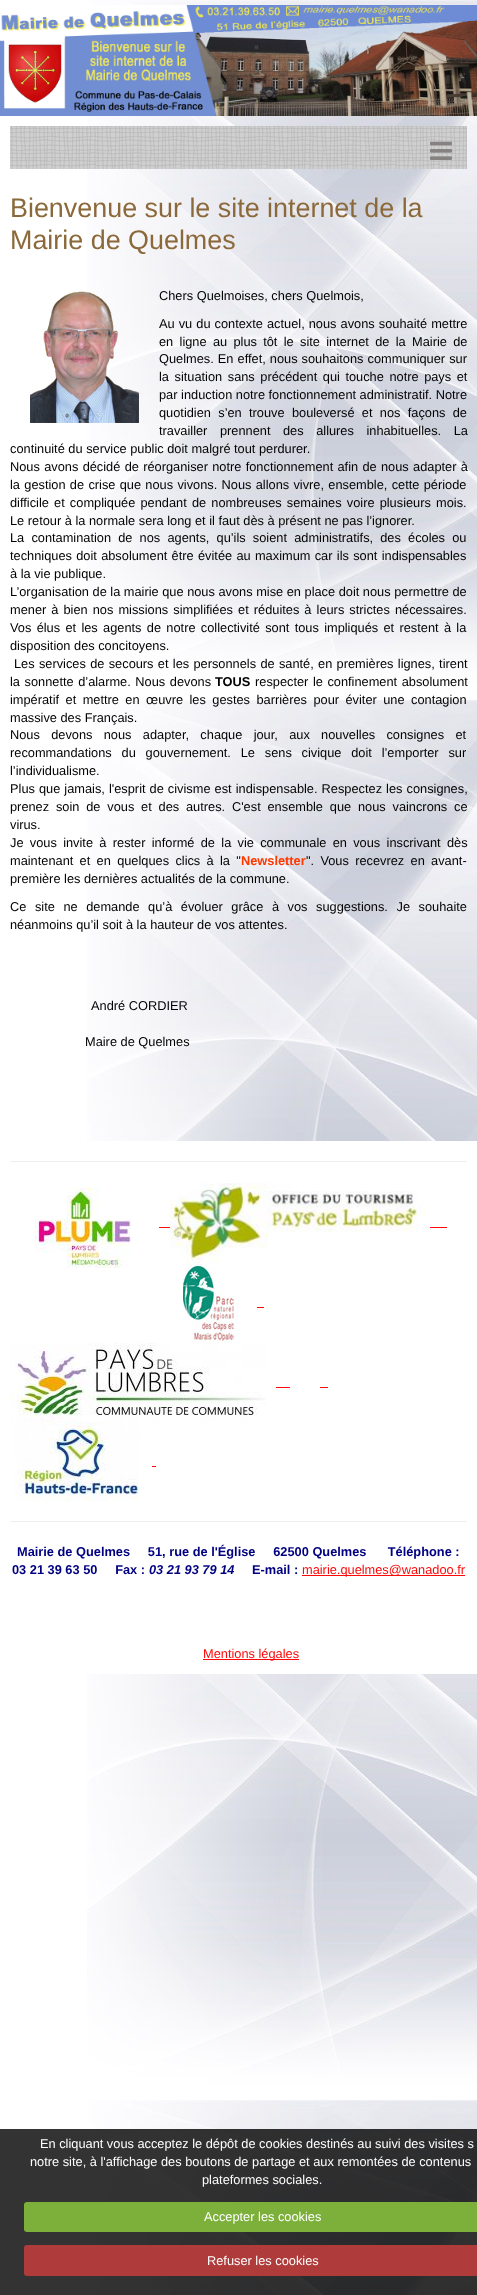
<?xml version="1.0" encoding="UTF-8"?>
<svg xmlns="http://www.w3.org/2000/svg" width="477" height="2295">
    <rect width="100%" height="100%" fill="#FFFFFF"/>
    <image x="87" y="0" width="390" height="2295" href="img_01.png"/>
    <image x="0" y="5" width="477" height="111" href="img_02.png"/>
    <image x="10" y="126" width="457" height="43" href="img_03.png"/>
    <image x="430" y="141" width="22" height="19" href="img_04.png"/>
    <text font-family="Liberation Sans" font-size="26.9" fill="#8B693A">
        <tspan x="10" y="217">Bienvenue sur le site internet de la</tspan>
        <tspan x="10" y="249">Mairie de Quelmes</tspan>
    </text>
    <image x="30" y="291" width="109" height="132" href="img_05.png"/>
    <text x="159" y="300" font-family="Liberation Sans" font-size="12.8" fill="#000000">Chers Quelmoises, chers Quelmois,</text>
    <text font-family="Liberation Sans" font-size="12.8" fill="#000000">
        <tspan x="159" y="328" word-spacing="0.5">Au vu du contexte actuel, nous avons souhaité mettre</tspan>
        <tspan x="159" y="346" word-spacing="2.75">en ligne au plus tôt le site internet de la Mairie de</tspan>
        <tspan x="159" y="363" word-spacing="0.5">Quelmes. En effet, nous souhaitons communiquer sur</tspan>
        <tspan x="159" y="381" word-spacing="2">la situation sans précédent qui touche notre pays et</tspan>
        <tspan x="159" y="399">par induction notre fonctionnement administratif. Notre</tspan>
        <tspan x="159" y="417" word-spacing="3.75">quotidien s’en trouve bouleversé et nos façons de</tspan>
        <tspan x="159" y="435" word-spacing="9">travailler prennent des allures inhabituelles. La</tspan>
    </text>
    <text font-family="Liberation Sans" font-size="12.8" fill="#000000">
        <tspan x="10" y="453">continuité du service public doit malgré tout perdurer.</tspan>
        <tspan x="10" y="471" word-spacing="0.75">Nous avons décidé de réorganiser notre fonctionnement afin de nous adapter à</tspan>
        <tspan x="10" y="489" word-spacing="0.75">la gestion de crise que nous vivons. Nous allons vivre, ensemble, cette période</tspan>
        <tspan x="10" y="507" word-spacing="1.6">difficile et compliquée pendant de nombreuses semaines voire plusieurs mois.</tspan>
        <tspan x="10" y="525">Le retour à la normale sera long et il faut dès à présent ne pas l’ignorer.</tspan>
        <tspan x="10" y="542" word-spacing="3.6">La contamination de nos agents, qu’ils soient administratifs, des écoles ou</tspan>
        <tspan x="10" y="560" word-spacing="0.75">techniques doit absolument être évitée au maximum car ils sont indispensables</tspan>
        <tspan x="10" y="578">à la vie publique.</tspan>
        <tspan x="10" y="596">L’organisation de la mairie que nous avons mise en place doit nous permettre de</tspan>
        <tspan x="10" y="614" word-spacing="1.5">mener à bien nos missions simplifiées et réduites à leurs strictes nécessaires.</tspan>
        <tspan x="10" y="632" word-spacing="1.75">Vos élus et les agents de notre collectivité sont tous impliqués et restent à la</tspan>
        <tspan x="10" y="650">disposition des concitoyens.</tspan>
    </text>
    <text x="14" y="668" word-spacing="0.75" font-family="Liberation Sans" font-size="12.8" fill="#000000">Les services de secours et les personnels de santé, en premières lignes, tirent</text>
    <text x="10" y="686" word-spacing="1" font-family="Liberation Sans" font-size="12.8" fill="#000000">la sonnette d’alarme. Nous devons</text>
    <text x="215" y="686" font-family="Liberation Sans" font-size="12.8" font-weight="700" fill="#000000">TOUS</text>
    <text x="255" y="686" word-spacing="1" font-family="Liberation Sans" font-size="12.8" fill="#000000">respecter le confinement absolument</text>
    <text font-family="Liberation Sans" font-size="12.8" fill="#000000">
        <tspan x="10" y="704" word-spacing="2.9">impératif et mettre en œuvre les gestes barrières pour éviter une contagion</tspan>
        <tspan x="10" y="722">massive des Français.</tspan>
        <tspan x="10" y="739" word-spacing="7.75">Nous devons nous adapter, chaque jour, aux nouvelles consignes et</tspan>
        <tspan x="10" y="757" word-spacing="6.25">recommandations du gouvernement. Le sens civique doit l’emporter sur</tspan>
        <tspan x="10" y="775">l’individualisme.</tspan>
        <tspan x="10" y="793" word-spacing="0.5">Plus que jamais, l'esprit de civisme est indispensable. Respectez les consignes,</tspan>
        <tspan x="10" y="811" word-spacing="3.25">prenez soin de vous et des autres. C'est ensemble que nous vaincrons ce</tspan>
        <tspan x="10" y="829">virus.</tspan>
        <tspan x="10" y="847" word-spacing="2.75">Je vous invite à rester informé de la vie communale en vous inscrivant dès</tspan>
        <tspan x="10" y="865" word-spacing="2.75">maintenant et en quelques clics à la "</tspan>
    </text>
    <text x="241" y="865" font-family="Liberation Sans" font-size="12.8" font-weight="700" fill="#FF3700">Newsletter</text>
    <text x="306" y="865" word-spacing="2.75" font-family="Liberation Sans" font-size="12.8" fill="#000000">". Vous recevrez en avant-</text>
    <text x="10" y="883" font-family="Liberation Sans" font-size="12.8" fill="#000000">première les dernières actualités de la commune.</text>
    <text font-family="Liberation Sans" font-size="12.8" fill="#000000">
        <tspan x="10" y="911" word-spacing="5">Ce site ne demande qu’à évoluer grâce à vos suggestions. Je souhaite</tspan>
        <tspan x="10" y="929">néanmoins qu’il soit à la hauteur de vos attentes.</tspan>
    </text>
    <text x="91" y="1010" font-family="Liberation Sans" font-size="12.8" fill="#000000">André CORDIER</text>
    <text x="85" y="1046" font-family="Liberation Sans" font-size="12.8" fill="#000000">Maire de Quelmes</text>
    <rect x="87" y="1141" width="390" height="533" fill="#FFFFFF"/>
    <rect x="10" y="1161" width="457" height="1" fill="#EEEEEE"/>
    <image x="35" y="1188" width="96" height="80" href="img_06.png"/>
    <rect x="159" y="1227" width="11" height="1" fill="#FF0808"/>
    <image x="170" y="1183" width="256" height="80" href="img_07.png"/>
    <rect x="430" y="1227" width="17" height="1" fill="#FF0808"/>
    <image x="183" y="1263" width="56" height="80" href="img_08.png"/>
    <rect x="257" y="1307" width="7" height="1" fill="#FF0808"/>
    <image x="10" y="1343" width="256" height="79" href="img_09.png"/>
    <rect x="276" y="1387" width="14" height="1" fill="#FF0808"/>
    <rect x="320" y="1387" width="8" height="1" fill="#FF0808"/>
    <image x="14" y="1422" width="125" height="79" href="img_10.png"/>
    <rect x="152" y="1466" width="4" height="1" fill="#FF0808"/>
    <rect x="10" y="1521" width="457" height="1" fill="#EEEEEE"/>
    <text x="17" y="1556" font-family="Liberation Sans" font-size="12.8" font-weight="700" fill="#000080" xml:space="preserve">Mairie de Quelmes     51, rue de l'Église     62500 Quelmes      Téléphone :</text>
    <text x="12" y="1574" font-family="Liberation Sans" font-size="12.8" font-weight="700" fill="#000080" xml:space="preserve">03 21 39 63 50     Fax :</text>
    <text x="149" y="1574" font-family="Liberation Sans" font-size="12.8" font-weight="700" font-style="italic" fill="#000080">03 21 93 79 14</text>
    <text x="252" y="1574" font-family="Liberation Sans" font-size="12.8" font-weight="700" fill="#000080">E-mail :</text>
    <rect x="302" y="1575" width="163" height="1" fill="#FF0808"/>
    <text x="302" y="1574" font-family="Liberation Sans" font-size="12.8" fill="#FF0808">mairie.quelmes@wanadoo.fr</text>
    <rect x="203" y="1659" width="96" height="1" fill="#FF0808"/>
    <text x="203" y="1658" font-family="Liberation Sans" font-size="12.8" fill="#FF0808">Mentions légales</text>
    <rect x="0" y="2129" width="477" height="166" fill="#000000" fill-opacity="0.8"/>
    <text x="40" y="2148" font-family="Liberation Sans" font-size="12.8" fill="#FFFFFF">En cliquant vous acceptez le dépôt de cookies destinés au suivi des visites s</text>
    <text x="30" y="2166" font-family="Liberation Sans" font-size="12.8" fill="#FFFFFF">notre site, à l'affichage des boutons de partage et aux remontées de contenus</text>
    <text x="202" y="2184" font-family="Liberation Sans" font-size="12.8" fill="#FFFFFF">plateformes sociales.</text>
    <rect x="24" y="2202" width="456" height="30" rx="3" fill="#7DAF3B"/>
    <text x="204" y="2221" font-family="Liberation Sans" font-size="12.8" fill="#FFFFFF">Accepter les cookies</text>
    <rect x="24" y="2245" width="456" height="31" rx="3" fill="#AF3B3B"/>
    <text x="207" y="2265" font-family="Liberation Sans" font-size="12.8" fill="#FFFFFF">Refuser les cookies</text>
</svg>
